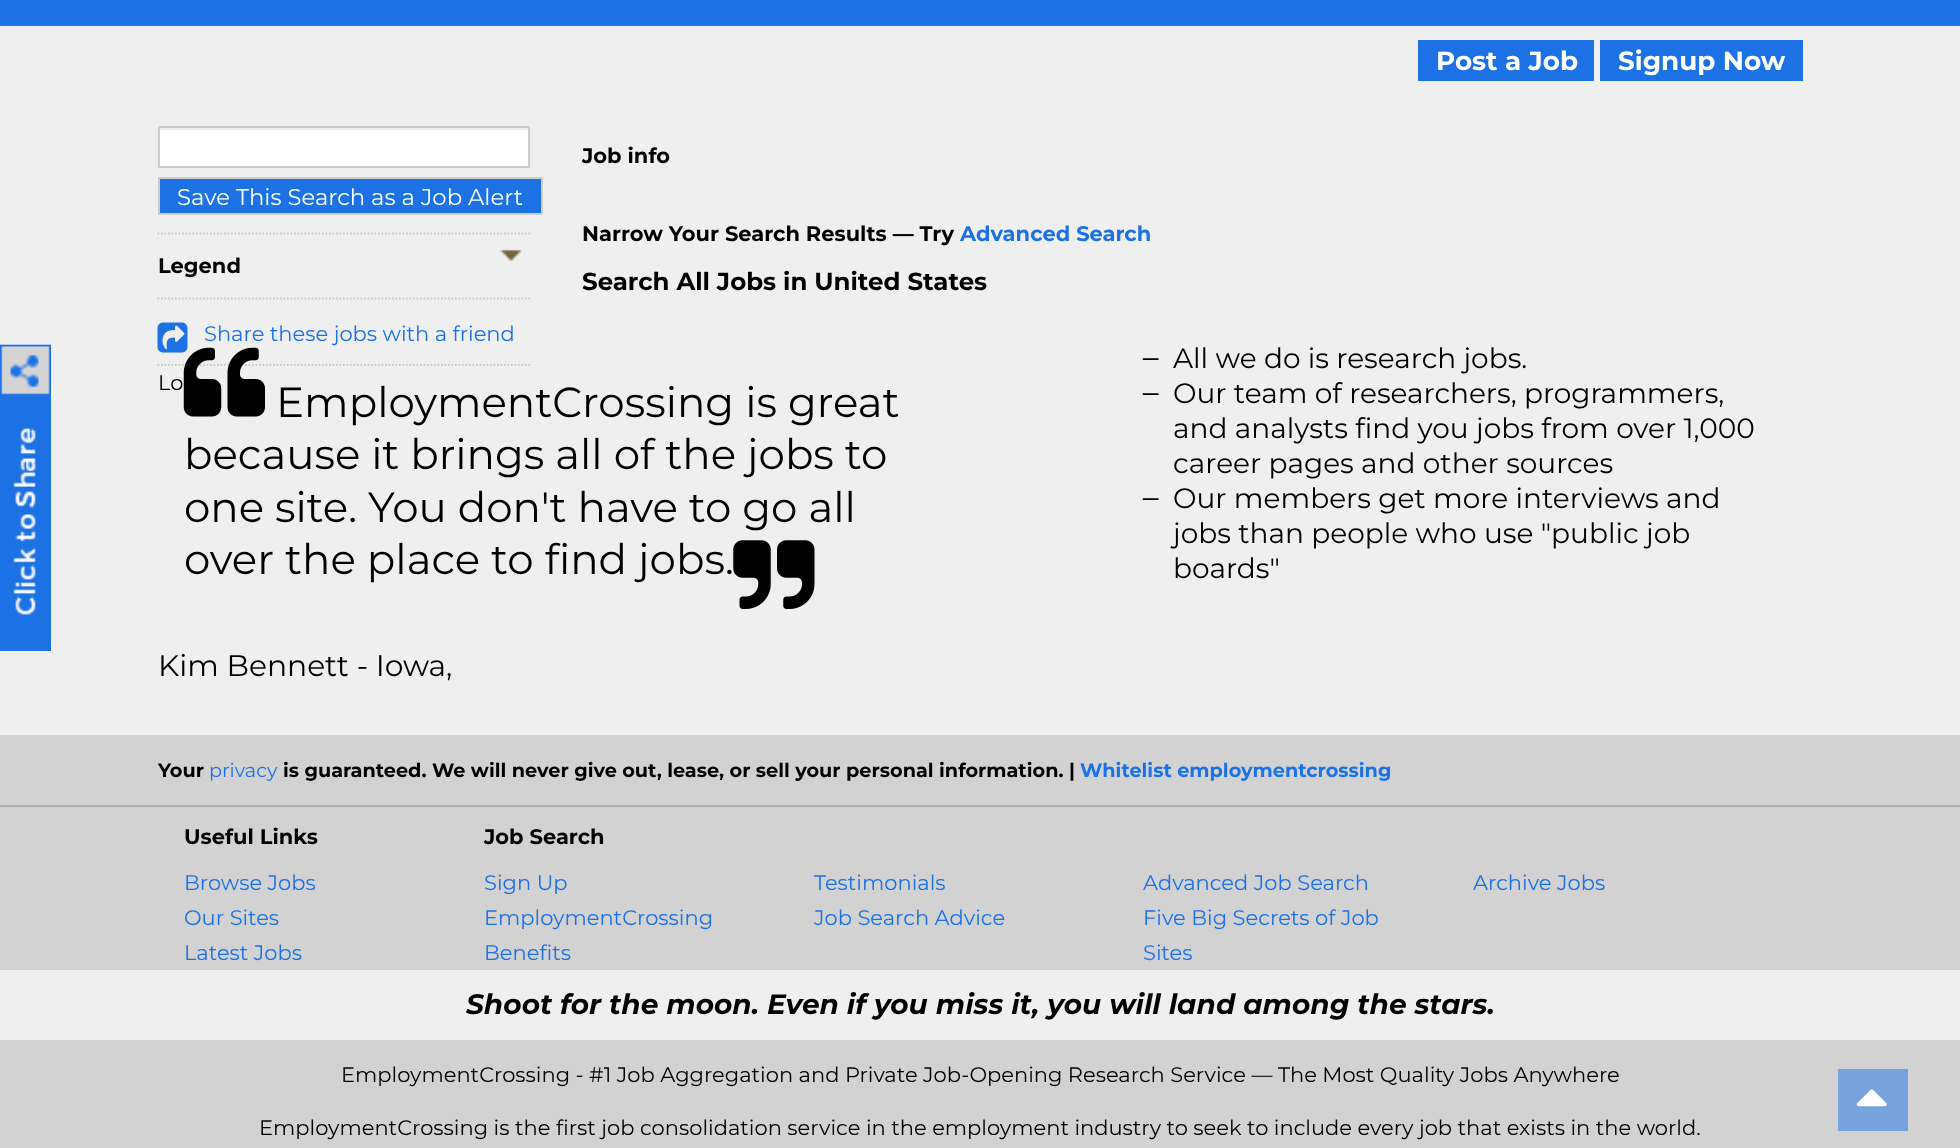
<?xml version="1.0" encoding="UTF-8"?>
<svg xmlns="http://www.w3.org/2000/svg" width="1960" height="1148">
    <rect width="100%" height="100%" fill="#D2D2D2"/>
    <rect x="0" y="0" width="1960" height="26" fill="#1C72E4"/>
    <rect x="0" y="26" width="1960" height="709" fill="#EFEFEF"/>
    <rect x="1418" y="40" width="176" height="41" fill="#1C72E4"/>
    <text x="1436" y="70" font-family="Montserrat" font-size="26.25" font-weight="700" fill="#FFFFFF">Post a Job</text>
    <rect x="1600" y="40" width="203" height="41" fill="#1C72E4"/>
    <text x="1618" y="70" font-family="Montserrat" font-size="26.25" font-weight="700" fill="#FFFFFF">Signup Now</text>
    <rect x="0" y="345" width="51" height="306" fill="#1C72E4"/>
    <image x="0" y="344" width="51" height="271" href="img_01.png"/>
    <rect x="160" y="130" width="368" height="36" fill="#FFFFFF"/>
    <rect x="159" y="128" width="370" height="2" fill="#ECECEC"/>
    <rect x="159" y="127" width="370" height="40" fill="none" stroke="#CCCCCC" stroke-width="2"/>
    <rect x="159" y="178" width="383" height="36" fill="#1C72E4" stroke="#CCCCCC" stroke-width="2"/>
    <text x="177" y="205" font-family="Montserrat" font-size="22.75" fill="#FFFFFF">Save This Search as a Job Alert</text>
    <path d="M 157.5 233.5 H 530" fill="none" stroke="#CEC9C1" stroke-width="1.8" stroke-dasharray="1.75 1.75"/>
    <path d="M 157.5 298.5 H 530" fill="none" stroke="#CEC9C1" stroke-width="1.8" stroke-dasharray="1.75 1.75"/>
    <image x="500" y="249" width="22" height="12" href="img_02.png"/>
    <text x="158" y="273" font-family="Montserrat" font-size="21" font-weight="700" fill="#000000">Legend</text>
    <image x="157" y="322" width="31" height="31" href="img_03.png"/>
    <text x="204" y="341" font-family="Montserrat" font-size="21" fill="#1C72E4">Share these jobs with a friend</text>
    <path d="M 157.5 365 H 530" fill="none" stroke="#CEC9C1" stroke-width="1.8" stroke-dasharray="1.75 1.75"/>
    <text x="158" y="390" font-family="Montserrat" font-size="21" fill="#000000">Lo</text>
    <text x="582" y="163" font-family="Montserrat" font-size="21" font-weight="700" fill="#000000">Job info</text>
    <text x="582" y="241" font-family="Montserrat" font-size="21" font-weight="700" fill="#000000">Narrow Your Search Results — Try</text>
    <text x="960" y="241" font-family="Montserrat" font-size="21" font-weight="700" fill="#1C72E4">Advanced Search</text>
    <text x="582" y="290" font-family="Montserrat" font-size="24.5" font-weight="700" fill="#000000">Search All Jobs in United States</text>
    <rect x="1838" y="1069" width="70" height="62" fill="#77A2DB"/>
    <image x="1856" y="1089" width="31" height="18" href="img_04.png"/>
    <image x="183" y="347" width="82" height="70" href="img_05.png"/>
    <text x="276" y="417" font-family="Montserrat" font-size="42" fill="#000000">EmploymentCrossing is great</text>
    <text font-family="Montserrat" font-size="42" fill="#000000">
        <tspan x="184" y="469">because it brings all of the jobs to</tspan>
        <tspan x="184" y="522">one site. You don't have to go all</tspan>
        <tspan x="184" y="574">over the place to find jobs.</tspan>
    </text>
    <image x="733" y="540" width="82" height="69" href="img_06.png"/>
    <text x="158" y="676" font-family="Montserrat" font-size="29.75" fill="#000000">Kim Bennett - Iowa,</text>
    <image x="1142" y="358" width="17" height="2" href="img_07.png"/>
    <text x="1173" y="368" font-family="Montserrat" font-size="28" fill="#000000">All we do is research jobs.</text>
    <image x="1142" y="393" width="17" height="2" href="img_07.png"/>
    <text font-family="Montserrat" font-size="28" fill="#000000">
        <tspan x="1173" y="403">Our team of researchers, programmers,</tspan>
        <tspan x="1173" y="438">and analysts find you jobs from over 1,000</tspan>
        <tspan x="1173" y="473">career pages and other sources</tspan>
    </text>
    <image x="1142" y="498" width="17" height="2" href="img_07.png"/>
    <text font-family="Montserrat" font-size="28" fill="#000000">
        <tspan x="1173" y="508">Our members get more interviews and</tspan>
        <tspan x="1173" y="543">jobs than people who use "public job</tspan>
        <tspan x="1173" y="578">boards"</tspan>
    </text>
    <rect x="0" y="805" width="1960" height="2" fill="#AFAFAF"/>
    <text x="158" y="777" font-family="Montserrat" font-size="19.25" font-weight="700" fill="#000000">Your</text>
    <text x="209" y="777" font-family="Montserrat" font-size="19.25" fill="#1C72E4">privacy</text>
    <text x="283" y="777" font-family="Montserrat" font-size="19.25" font-weight="700" fill="#000000">is guaranteed. We will never give out, lease, or sell your personal information. |</text>
    <text x="1080" y="777" font-family="Montserrat" font-size="19.25" font-weight="700" fill="#1C72E4">Whitelist employmentcrossing</text>
    <text x="184" y="844" font-family="Montserrat" font-size="21" font-weight="700" fill="#000000">Useful Links</text>
    <text font-family="Montserrat" font-size="21" fill="#1C72E4">
        <tspan x="184" y="890">Browse Jobs</tspan>
        <tspan x="184" y="925">Our Sites</tspan>
        <tspan x="184" y="960">Latest Jobs</tspan>
    </text>
    <text x="484" y="844" font-family="Montserrat" font-size="21" font-weight="700" fill="#000000">Job Search</text>
    <text font-family="Montserrat" font-size="21" fill="#1C72E4">
        <tspan x="484" y="890">Sign Up</tspan>
        <tspan x="484" y="925">EmploymentCrossing</tspan>
        <tspan x="484" y="960">Benefits</tspan>
    </text>
    <text font-family="Montserrat" font-size="21" fill="#1C72E4">
        <tspan x="814" y="890">Testimonials</tspan>
        <tspan x="814" y="925">Job Search Advice</tspan>
    </text>
    <text font-family="Montserrat" font-size="21" fill="#1C72E4">
        <tspan x="1143" y="890">Advanced Job Search</tspan>
        <tspan x="1143" y="925">Five Big Secrets of Job</tspan>
        <tspan x="1143" y="960">Sites</tspan>
    </text>
    <text x="1473" y="890" font-family="Montserrat" font-size="21" fill="#1C72E4">Archive Jobs</text>
    <rect x="0" y="970" width="1960" height="70" fill="#EFEFEF"/>
    <text x="466" y="1014" font-family="Montserrat" font-size="28" font-weight="700" font-style="italic" fill="#000000">Shoot for the moon. Even if you miss it, you will land among the stars.</text>
    <text x="341" y="1082" font-family="Montserrat" font-size="21" fill="#000000">EmploymentCrossing - #1 Job Aggregation and Private Job-Opening Research Service — The Most Quality Jobs Anywhere</text>
    <text x="259" y="1135" font-family="Montserrat" font-size="21" fill="#000000">EmploymentCrossing is the first job consolidation service in the employment industry to seek to include every job that exists in the world.</text>
</svg>
